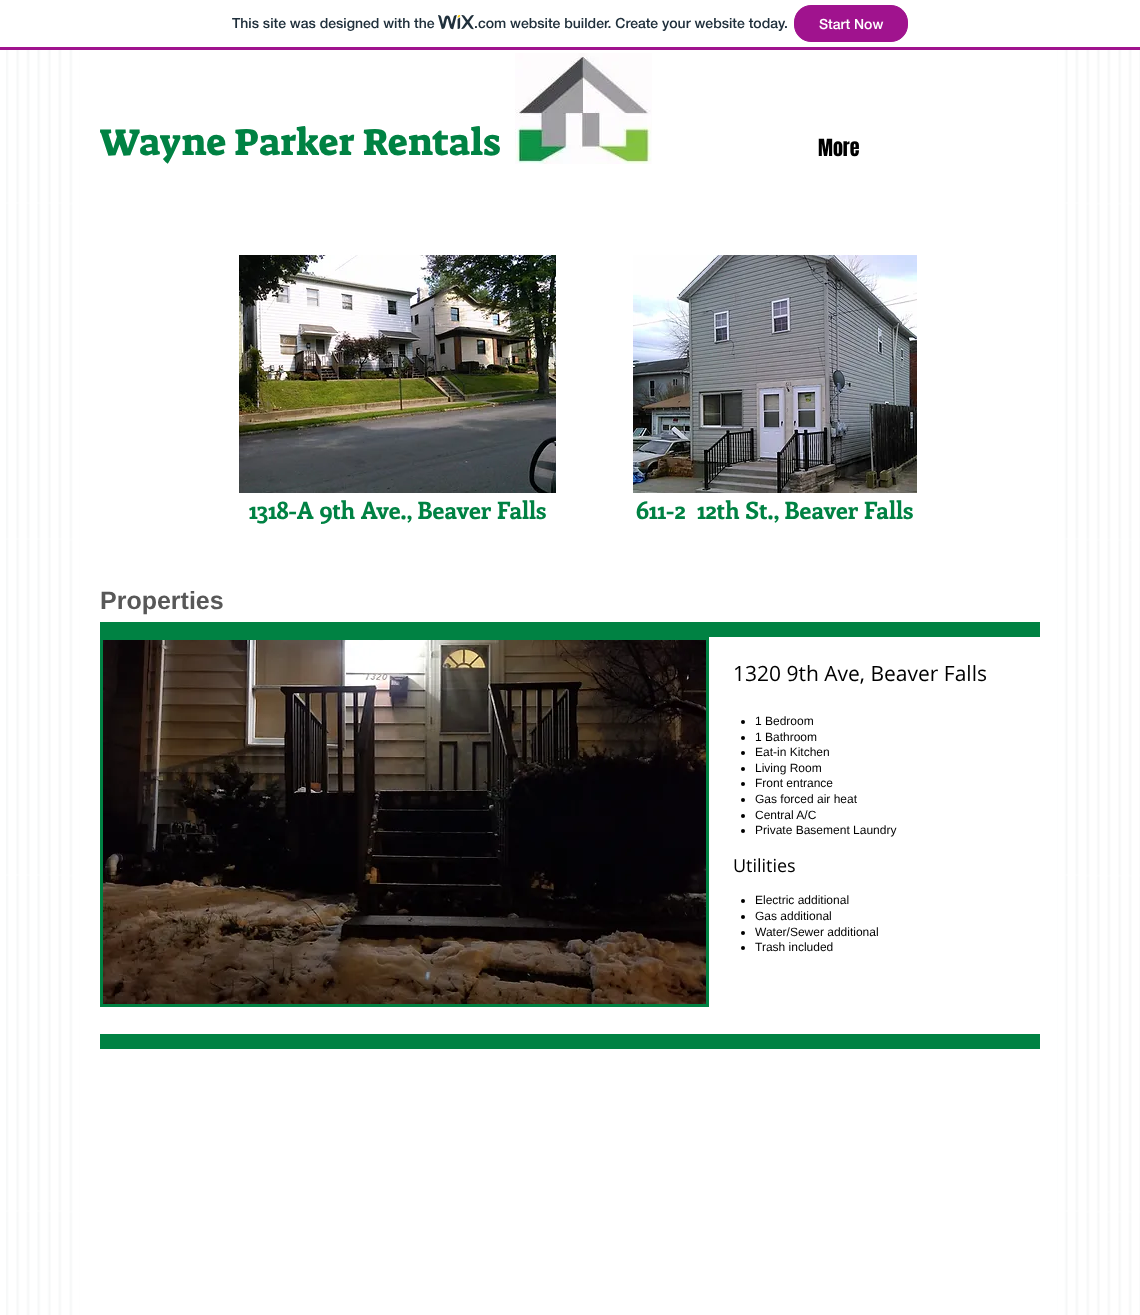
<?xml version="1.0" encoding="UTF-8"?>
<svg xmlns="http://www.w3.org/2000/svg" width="1140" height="1315">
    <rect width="100%" height="100%" fill="#FFFFFF"/>
    <rect x="0" y="47" width="1140" height="3" fill="#A0138E"/>
    <text x="232" y="28" font-family="'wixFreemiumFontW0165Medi'" font-size="14" font-weight="500" fill="#20303C">This site was designed with the</text>
    <image x="438" y="15" width="36" height="15" href="img_01.png"/>
    <text x="474" y="28" font-family="'wixFreemiumFontW0165Medi'" font-size="14" font-weight="500" fill="#20303C">.com website builder. Create your website today.</text>
    <rect x="794.5" y="5.5" width="113" height="36" rx="16.5" fill="#A0138E" stroke="#A0138E"/>
    <text x="819" y="29" font-family="'wixFreemiumFontW0165Medi'" font-size="14" font-weight="500" fill="#FFFFFF">Start Now</text>
    <image x="6" y="50" width="1134" height="1265" href="img_02.png"/>
    <rect x="80" y="50" width="977" height="1265" fill="#FFFFFF"/>
    <text x="99" y="155" font-family="Suez One" font-size="38" fill="#008243">Wayne Parker Rentals</text>
    <image x="515" y="53" width="137" height="111" href="img_03.png"/>
    <text x="818" y="156" font-family="Anton" font-size="20" fill="#000000">More</text>
    <image x="239" y="255" width="317" height="238" href="img_04.png"/>
    <image x="633" y="255" width="284" height="238" href="img_05.png"/>
    <text x="249" y="519" font-family="Enriqueta" font-size="24" font-weight="700" fill="#008243">1318-A 9th Ave., Beaver Falls</text>
    <text x="636" y="519" font-family="Enriqueta" font-size="24" font-weight="700" fill="#008243" xml:space="preserve">611-2  12th St., Beaver Falls</text>
    <text x="100" y="609" font-family="Liberation Sans" font-size="25" font-weight="700" fill="#585858">Properties</text>
    <rect x="100" y="622" width="940" height="15" fill="#008243"/>
    <rect x="100" y="637" width="609" height="370" fill="#008243"/>
    <image x="103" y="640" width="603" height="364" href="img_06.png"/>
    <text x="733" y="681" font-family="Open Sans" font-size="21" fill="#000000">1320 9th Ave, Beaver Falls</text>
    <circle cx="743" cy="722" r="2" fill="#000000"/>
    <text x="755" y="725" font-family="Liberation Sans" font-size="12" fill="#000000">1 Bedroom</text>
    <circle cx="743" cy="738" r="2" fill="#000000"/>
    <text x="755" y="741" font-family="Liberation Sans" font-size="12" fill="#000000">1 Bathroom</text>
    <circle cx="743" cy="753" r="2" fill="#000000"/>
    <text x="755" y="756" font-family="Liberation Sans" font-size="12" fill="#000000">Eat-in Kitchen</text>
    <circle cx="743" cy="769" r="2" fill="#000000"/>
    <text x="755" y="772" font-family="Liberation Sans" font-size="12" fill="#000000">Living Room</text>
    <circle cx="743" cy="784" r="2" fill="#000000"/>
    <text x="755" y="787" font-family="Liberation Sans" font-size="12" fill="#000000">Front entrance</text>
    <circle cx="743" cy="800" r="2" fill="#000000"/>
    <text x="755" y="803" font-family="Liberation Sans" font-size="12" fill="#000000">Gas forced air heat</text>
    <circle cx="743" cy="816" r="2" fill="#000000"/>
    <text x="755" y="819" font-family="Liberation Sans" font-size="12" fill="#000000">Central A/C</text>
    <circle cx="743" cy="831" r="2" fill="#000000"/>
    <text x="755" y="834" font-family="Liberation Sans" font-size="12" fill="#000000">Private Basement Laundry</text>
    <text x="733" y="872" font-family="Open Sans" font-size="18" fill="#000000">Utilities</text>
    <circle cx="743" cy="901" r="2" fill="#000000"/>
    <text x="755" y="904" font-family="Liberation Sans" font-size="12" fill="#000000">Electric additional</text>
    <circle cx="743" cy="917" r="2" fill="#000000"/>
    <text x="755" y="920" font-family="Liberation Sans" font-size="12" fill="#000000">Gas additional</text>
    <circle cx="743" cy="933" r="2" fill="#000000"/>
    <text x="755" y="936" font-family="Liberation Sans" font-size="12" fill="#000000">Water/Sewer additional</text>
    <circle cx="743" cy="948" r="2" fill="#000000"/>
    <text x="755" y="951" font-family="Liberation Sans" font-size="12" fill="#000000">Trash included</text>
    <rect x="100" y="1034" width="940" height="15" fill="#008243"/>
</svg>
